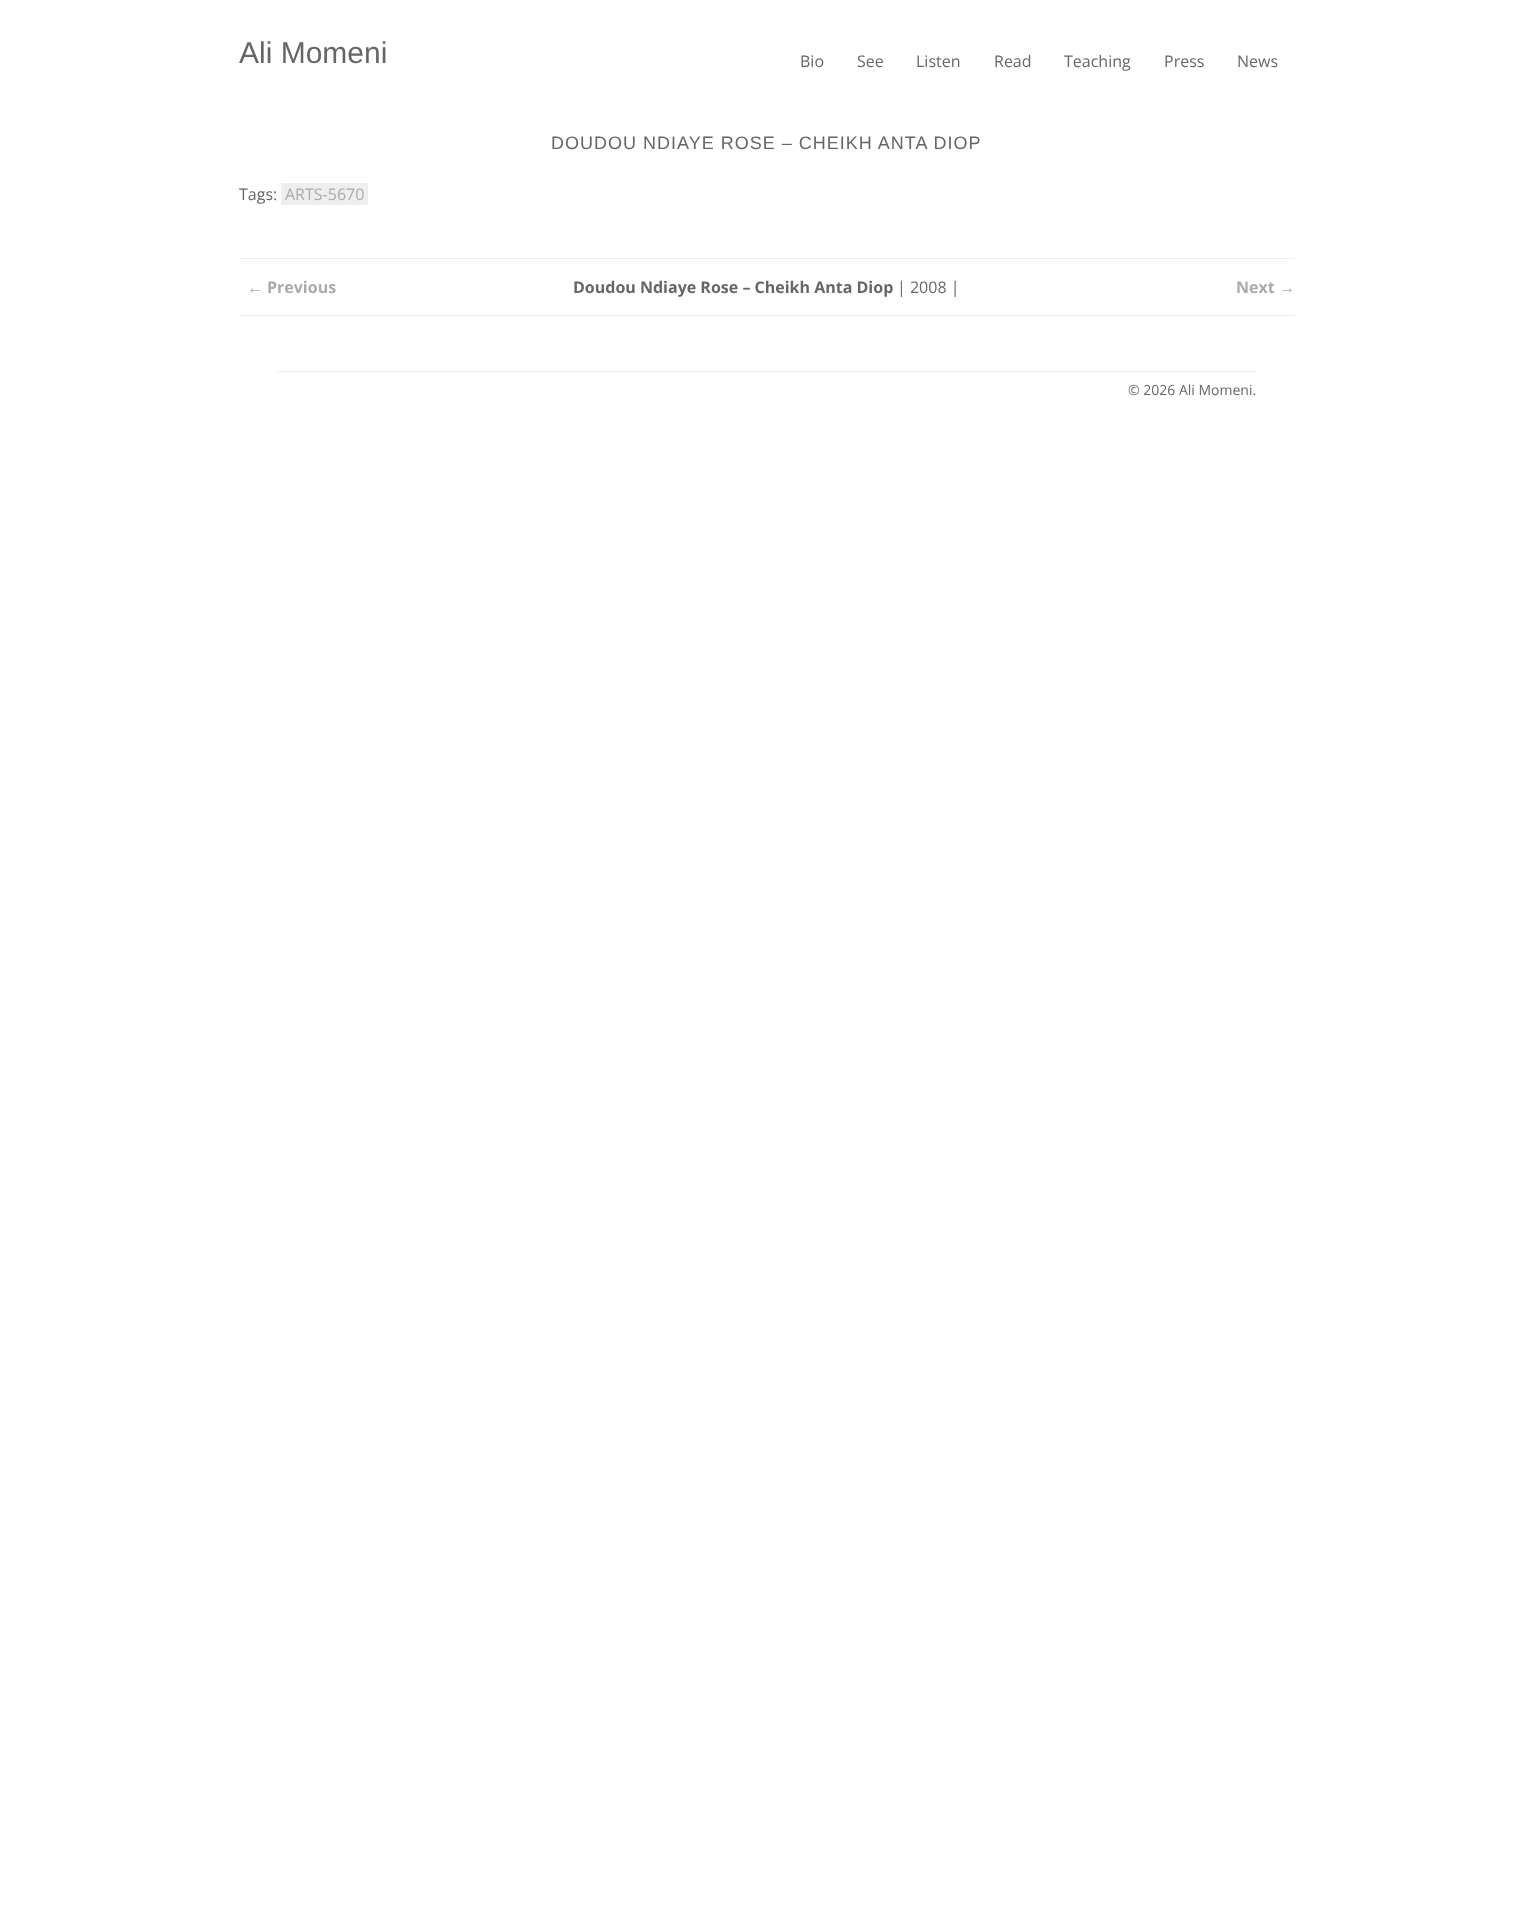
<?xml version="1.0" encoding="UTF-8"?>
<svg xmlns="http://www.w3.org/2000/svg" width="1533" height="1910">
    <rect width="100%" height="100%" fill="#FFFFFF"/>
    <text x="239" y="63" font-family="Liberation Sans" font-size="30" fill="#666666">Ali Momeni</text>
    <text x="800" y="67" font-family="Open Sans" font-size="16" fill="#666666">Bio</text>
    <text x="857" y="67" font-family="Open Sans" font-size="16" fill="#666666">See</text>
    <text x="916" y="67" font-family="Open Sans" font-size="16" fill="#666666">Listen</text>
    <text x="994" y="67" font-family="Open Sans" font-size="16" fill="#666666">Read</text>
    <text x="1064" y="67" font-family="Open Sans" font-size="16" fill="#666666">Teaching</text>
    <text x="1164" y="67" font-family="Open Sans" font-size="16" fill="#666666">Press</text>
    <text x="1237" y="67" font-family="Open Sans" font-size="16" fill="#666666">News</text>
    <text x="551" y="149" font-family="Liberation Sans" font-size="18" letter-spacing="1" fill="#666666">DOUDOU NDIAYE ROSE – CHEIKH ANTA DIOP</text>
    <text x="239" y="200" font-family="Open Sans" font-size="16" fill="#666666">Tags:</text>
    <rect x="281" y="183" width="87" height="22" fill="#EEEEEE"/>
    <text x="285" y="200" font-family="Open Sans" font-size="16" fill="#AAAAAA">ARTS-5670</text>
    <rect x="239" y="258" width="1056" height="1" fill="#EEEEEE"/>
    <rect x="239" y="315" width="1056" height="1" fill="#EEEEEE"/>
    <text x="247" y="293" font-family="Liberation Sans" font-size="16" font-weight="700" fill="#AAAAAA">←</text>
    <text x="267" y="293" font-family="Open Sans" font-size="16" font-weight="700" fill="#AAAAAA">Previous</text>
    <text x="573" y="293" font-family="Open Sans" font-size="16" font-weight="700" fill="#666666">Doudou Ndiaye Rose – Cheikh Anta Diop</text>
    <text x="897" y="293" font-family="Open Sans" font-size="16" fill="#666666">| 2008 |</text>
    <text x="1236" y="293" font-family="Open Sans" font-size="16" font-weight="700" fill="#AAAAAA">Next</text>
    <text x="1279" y="293" font-family="Liberation Sans" font-size="16" font-weight="700" fill="#AAAAAA">→</text>
    <rect x="277" y="371" width="980" height="1" fill="#EEEEEE"/>
    <text x="1128" y="395" font-family="Open Sans" font-size="14" fill="#666666">© 2026 Ali Momeni.</text>
</svg>
